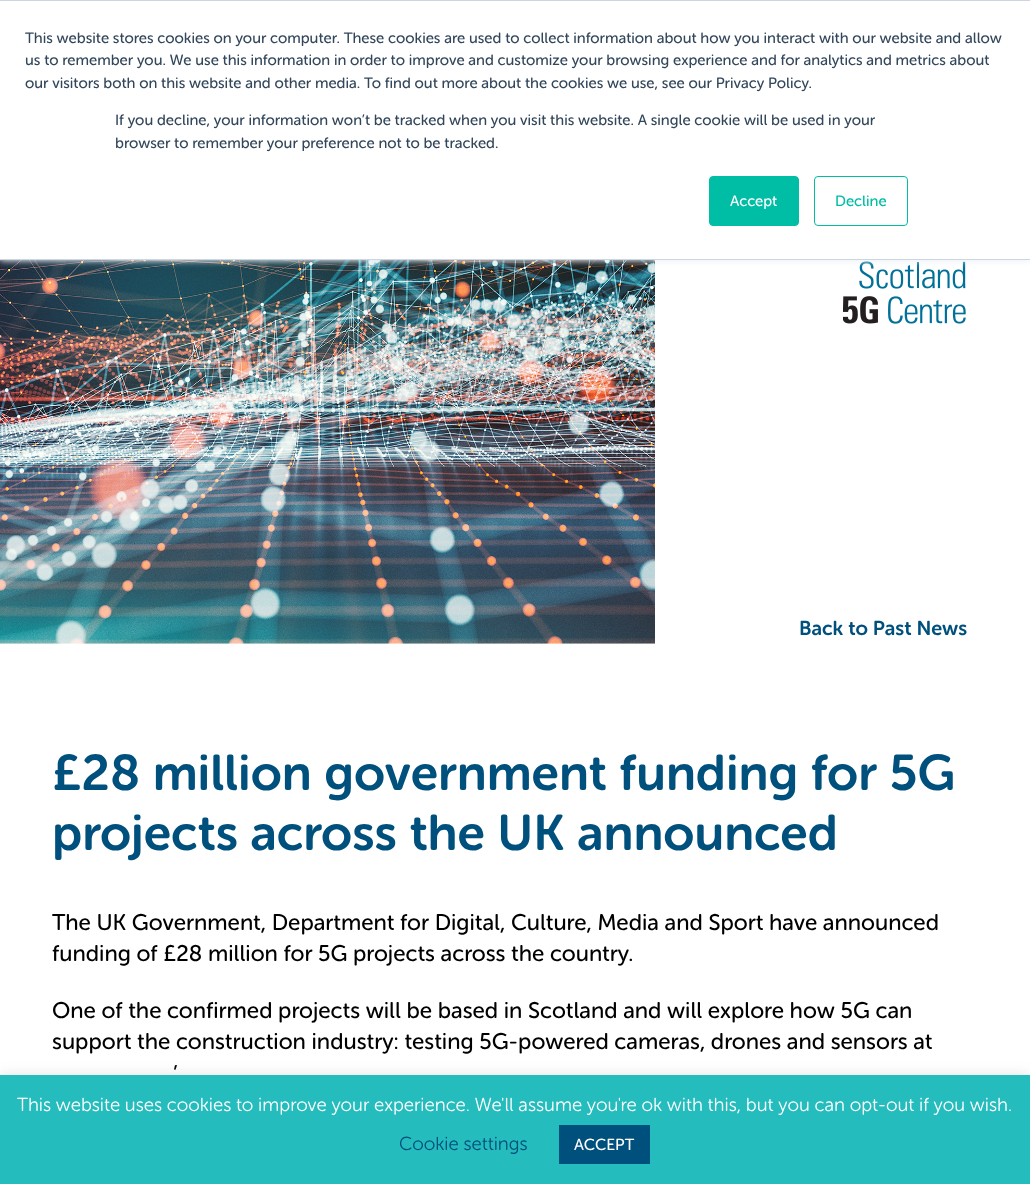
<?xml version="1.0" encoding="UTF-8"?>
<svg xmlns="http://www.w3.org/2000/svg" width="1030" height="1184">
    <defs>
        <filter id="blur1" x="-50%" y="-200%" width="200%" height="500%"><feGaussianBlur stdDeviation="3"/></filter>
        <filter id="blur2" x="-50%" y="-200%" width="200%" height="500%"><feGaussianBlur stdDeviation="6"/></filter>
    </defs>
    <rect width="100%" height="100%" fill="#FFFFFF"/>
    <image x="0" y="260" width="655" height="384" href="img_01.png"/>
    <image x="843" y="261" width="123" height="63" href="img_02.png"/>
    <rect x="0" y="1" width="1030" height="260" fill="#EAF0F6" filter="url(#blur1)"/>
    <rect x="0" y="1" width="1030" height="258" fill="#FFFFFF"/>
    <rect x="0" y="0" width="1030" height="1" fill="#CBD6E2"/>
    <rect x="0" y="259" width="1030" height="1" fill="#CBD6E2"/>
    <text font-family="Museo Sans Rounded" font-size="15" fill="#33475B">
        <tspan x="25" y="43">This website stores cookies on your computer. These cookies are used to collect information about how you interact with our website and allow</tspan>
        <tspan x="25" y="65">us to remember you. We use this information in order to improve and customize your browsing experience and for analytics and metrics about</tspan>
        <tspan x="25" y="88">our visitors both on this website and other media. To find out more about the cookies we use, see our Privacy Policy.</tspan>
    </text>
    <text font-family="Museo Sans Rounded" font-size="15" fill="#33475B">
        <tspan x="115" y="125">If you decline, your information won’t be tracked when you visit this website. A single cookie will be used in your</tspan>
        <tspan x="115" y="148">browser to remember your preference not to be tracked.</tspan>
    </text>
    <rect x="709.5" y="176.5" width="89" height="49" rx="3.5" fill="#00BDA5" stroke="#00BDA5"/>
    <text x="730" y="206" font-family="Museo Sans Rounded" font-size="15" fill="#FFFFFF">Accept</text>
    <rect x="814.5" y="176.5" width="93" height="49" rx="3.5" fill="none" stroke="#00BDA5"/>
    <text x="835" y="206" font-family="Museo Sans Rounded" font-size="15" fill="#00BDA5">Decline</text>
    <text x="799" y="635" font-family="Museo Sans Rounded" font-size="20" font-weight="600" fill="#00507D">Back to Past News</text>
    <text font-family="Museo Sans Rounded" font-size="50" font-weight="600" fill="#00507D">
        <tspan x="52" y="790">£28 million government funding for 5G</tspan>
        <tspan x="52" y="850">projects across the UK announced</tspan>
    </text>
    <text font-family="Museo Sans Rounded" font-size="22.5" fill="#000000">
        <tspan x="52" y="930">The UK Government, Department for Digital, Culture, Media and Sport have announced</tspan>
        <tspan x="52" y="961">funding of £28 million for 5G projects across the country.</tspan>
    </text>
    <text font-family="Museo Sans Rounded" font-size="22.5" fill="#000000">
        <tspan x="52" y="1018">One of the confirmed projects will be based in Scotland and will explore how 5G can</tspan>
        <tspan x="52" y="1049">support the construction industry: testing 5G-powered cameras, drones and sensors at</tspan>
    </text>
    <text x="173" y="1081" font-family="Museo Sans Rounded" font-size="22.5" fill="#000000">’</text>
    <rect x="0" y="1074" width="1030" height="110" fill="#ACABAB" fill-opacity="0.3" filter="url(#blur2)"/>
    <rect x="0" y="1075" width="1030" height="109" fill="#25BCBD"/>
    <text x="17" y="1111" font-family="Museo Sans Rounded" font-size="18.75" font-weight="300" fill="#FFFFFF">This website uses cookies to improve your experience. We'll assume you're ok with this, but you can opt-out if you wish.</text>
    <text x="399" y="1150" font-family="Museo Sans Rounded" font-size="18.75" font-weight="300" fill="#00507D">Cookie settings</text>
    <rect x="559" y="1125" width="91" height="39" fill="#00507D"/>
    <text x="574" y="1150" font-family="Museo Sans Rounded" font-size="16" fill="#FFFFFF">ACCEPT</text>
</svg>
